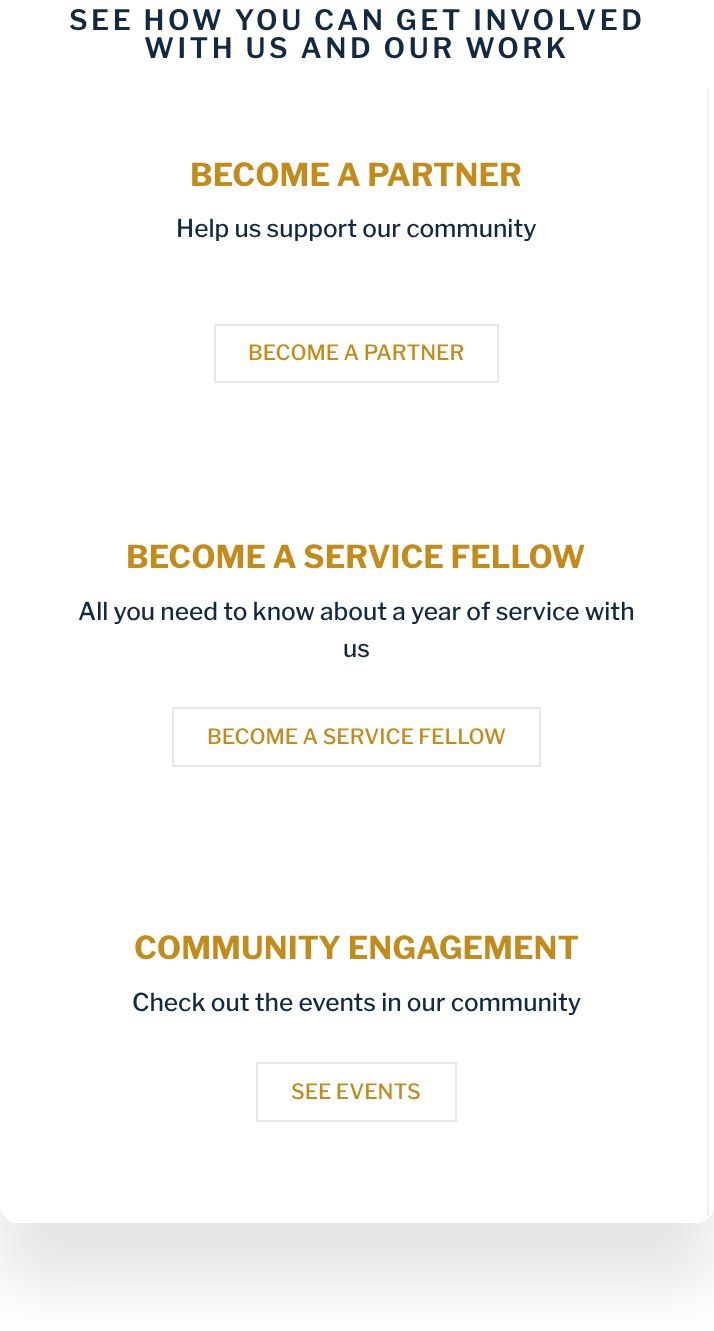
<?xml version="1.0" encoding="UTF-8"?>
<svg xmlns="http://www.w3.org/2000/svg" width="714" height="1331">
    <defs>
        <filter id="blur1" x="-50%" y="-200%" width="200%" height="500%"><feGaussianBlur stdDeviation="30.5"/></filter>
    </defs>
    <rect width="100%" height="100%" fill="#FFFFFF"/>
    <rect x="0" y="42" width="714" height="1243" rx="18" fill="#000000" fill-opacity="0.1" filter="url(#blur1)"/>
    <rect x="0" y="-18" width="714" height="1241" rx="18" fill="#FFFFFF"/>
    <text x="69" y="30" font-family="Libre Franklin" font-size="28" font-weight="600" letter-spacing="3.5" fill="#122940">SEE HOW YOU CAN GET INVOLVED</text>
    <text x="144" y="58" font-family="Libre Franklin" font-size="28" font-weight="600" letter-spacing="3.5" fill="#122940">WITH US AND OUR WORK</text>
    <rect x="707" y="89" width="2" height="382" fill="#F0F0F0"/>
    <text x="190" y="186" font-family="Libre Franklin" font-size="31.5" font-weight="700" fill="#C28C1C">BECOME A PARTNER</text>
    <text x="176" y="237" font-family="Libre Franklin" font-size="24.5" font-weight="500" fill="#122940">Help us support our community</text>
    <rect x="215" y="325" width="283" height="57" fill="none" stroke="#E7E7E7" stroke-width="2"/>
    <text x="248" y="360" font-family="Libre Franklin" font-size="21" font-weight="500" fill="#C28C1C">BECOME A PARTNER</text>
    <rect x="707" y="473" width="2" height="388" fill="#F0F0F0"/>
    <text x="126" y="568" font-family="Libre Franklin" font-size="31.5" font-weight="700" fill="#C28C1C">BECOME A SERVICE FELLOW</text>
    <text x="78" y="620" font-family="Libre Franklin" font-size="24.5" font-weight="500" fill="#122940">All you need to know about a year of service with</text>
    <text x="343" y="657" font-family="Libre Franklin" font-size="24.5" font-weight="500" fill="#122940">us</text>
    <rect x="173" y="708" width="367" height="58" fill="none" stroke="#E7E7E7" stroke-width="2"/>
    <text x="207" y="744" font-family="Libre Franklin" font-size="21" font-weight="500" fill="#C28C1C">BECOME A SERVICE FELLOW</text>
    <rect x="707" y="863" width="2" height="353" fill="#F0F0F0"/>
    <text x="134" y="959" font-family="Libre Franklin" font-size="31.5" font-weight="700" fill="#C28C1C">COMMUNITY ENGAGEMENT</text>
    <text x="132" y="1011" font-family="Libre Franklin" font-size="24.5" font-weight="500" fill="#122940">Check out the events in our community</text>
    <rect x="257" y="1063" width="199" height="58" fill="none" stroke="#E7E7E7" stroke-width="2"/>
    <text x="291" y="1099" font-family="Libre Franklin" font-size="21" font-weight="500" fill="#C28C1C">SEE EVENTS</text>
</svg>
